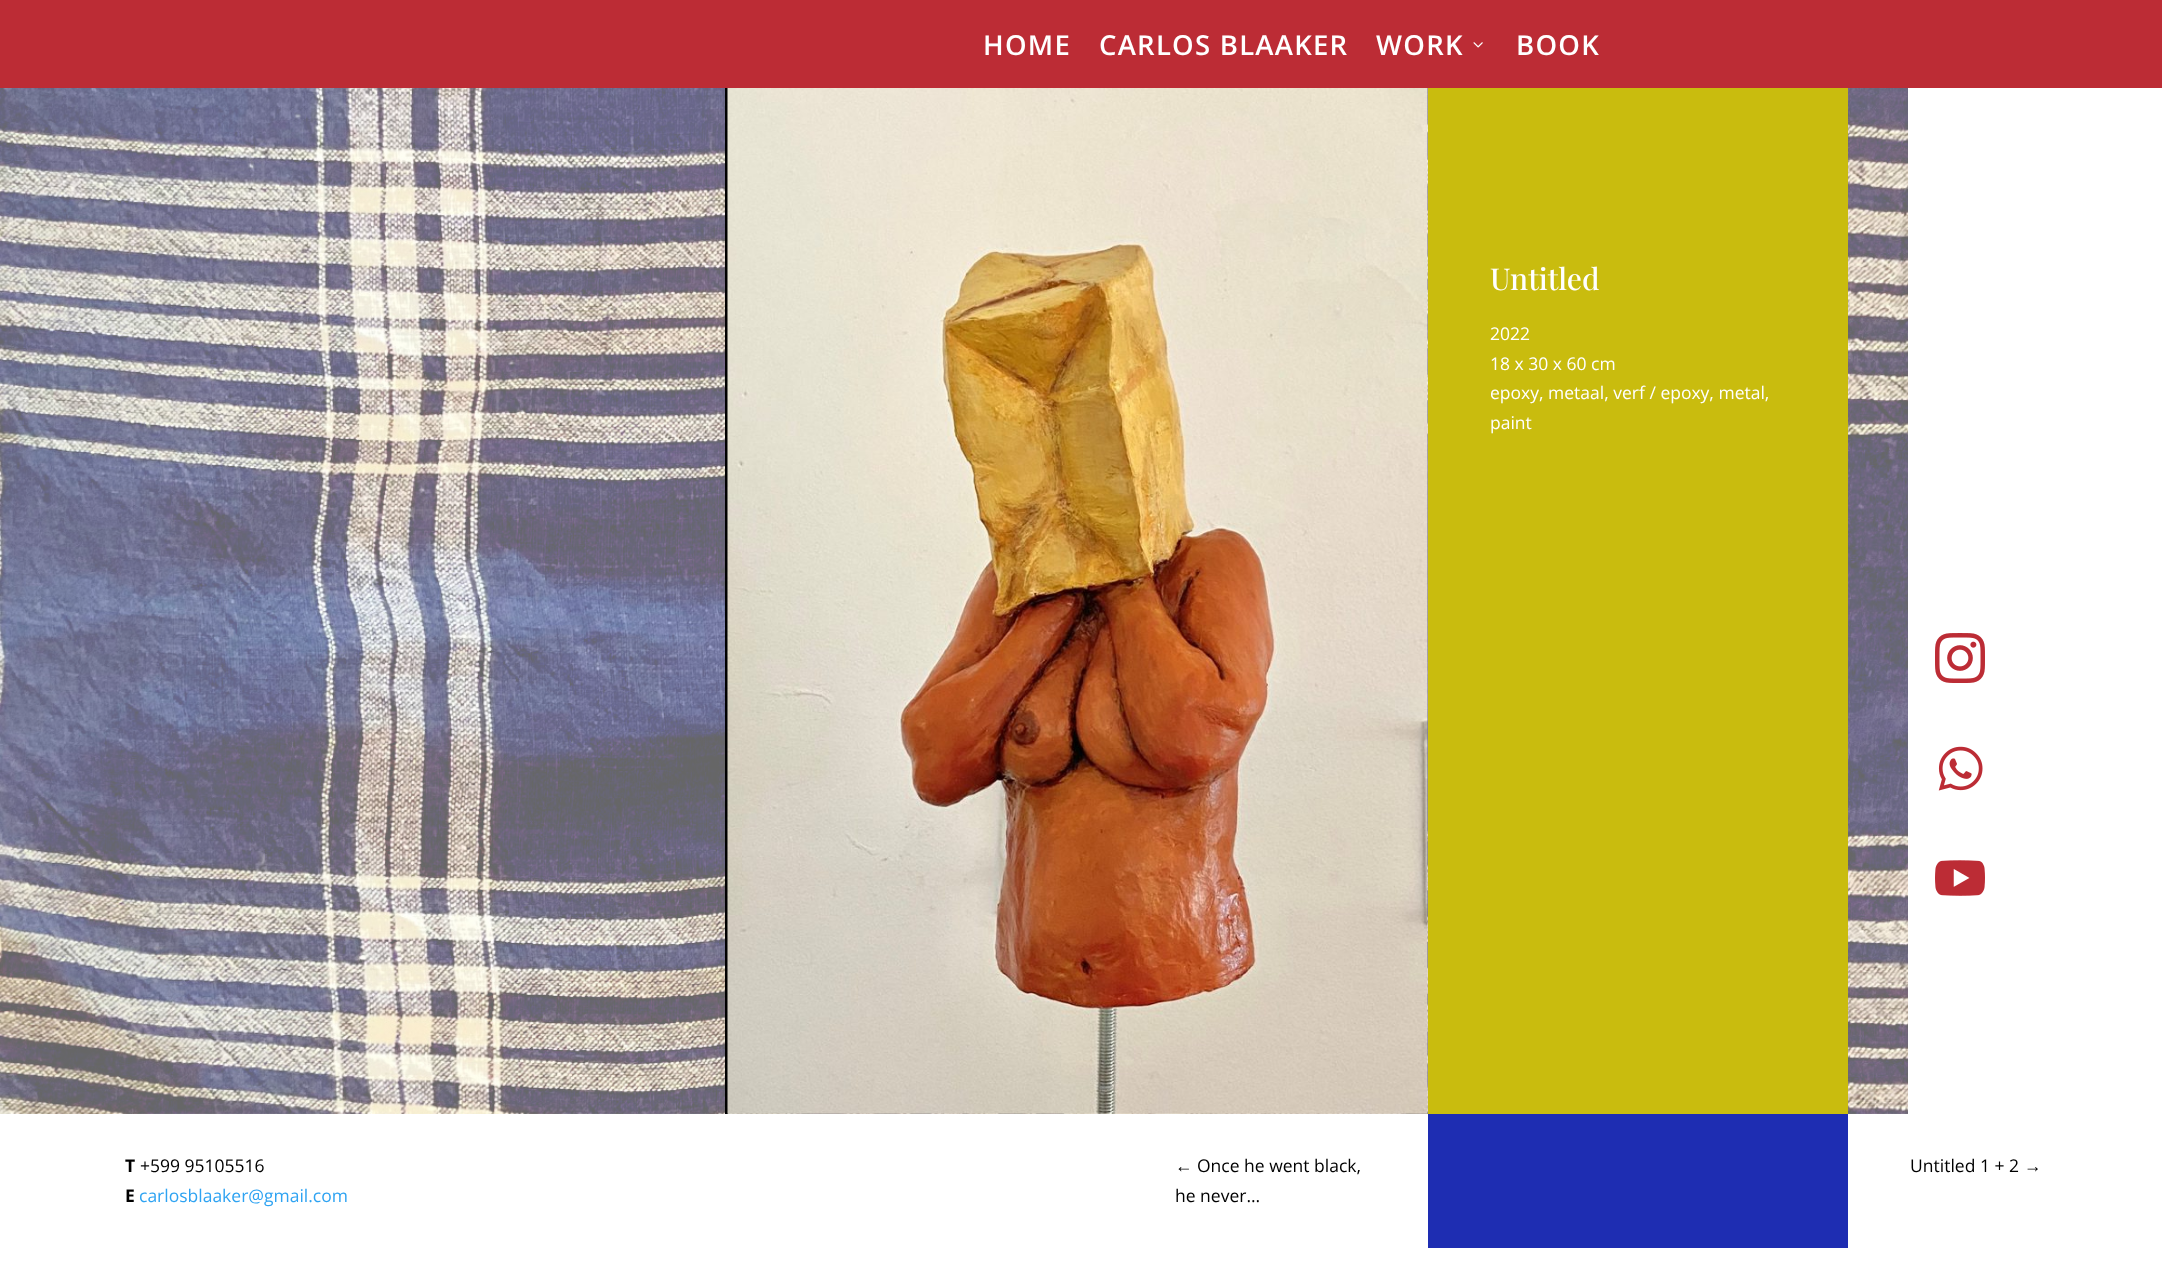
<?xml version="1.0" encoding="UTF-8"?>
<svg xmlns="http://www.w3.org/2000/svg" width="2162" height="1282">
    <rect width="100%" height="100%" fill="#FFFFFF"/>
    <rect x="0" y="0" width="2162" height="88" fill="#BC2C35"/>
    <text x="983" y="55" font-family="Open Sans" font-size="27.5" font-weight="600" letter-spacing="1.25" fill="#FFFFFF">HOME</text>
    <text x="1099" y="55" font-family="Open Sans" font-size="27.5" font-weight="600" letter-spacing="1.25" fill="#FFFFFF">CARLOS BLAAKER</text>
    <text x="1376" y="55" font-family="Open Sans" font-size="27.5" font-weight="600" letter-spacing="1.25" fill="#FFFFFF">WORK</text>
    <image x="1473" y="42" width="10" height="6" href="img_01.png"/>
    <text x="1516" y="55" font-family="Open Sans" font-size="27.5" font-weight="600" letter-spacing="1.25" fill="#FFFFFF">BOOK</text>
    <image x="0" y="88" width="1908" height="1026" href="img_02.png"/>
    <rect x="725" y="88" width="3" height="1026" fill="#000000"/>
    <image x="727" y="88" width="701" height="1026" href="img_03.png"/>
    <rect x="1428" y="88" width="420" height="1026" fill="#C9BC0E"/>
    <text x="1490" y="290" font-family="Playfair Display" font-size="30" font-weight="500" fill="#FFFFFF">Untitled</text>
    <text font-family="Open Sans" font-size="17.5" fill="#FFFFFF">
        <tspan x="1490" y="340">2022</tspan>
        <tspan x="1490" y="370">18 x 30 x 60 cm</tspan>
        <tspan x="1490" y="399">epoxy, metaal, verf / epoxy, metal,</tspan>
        <tspan x="1490" y="429">paint</tspan>
    </text>
    <image x="1935" y="633" width="50" height="50" href="img_04.png"/>
    <image x="1938" y="746" width="45" height="45" href="img_05.png"/>
    <image x="1935" y="860" width="50" height="36" href="img_06.png"/>
    <text x="125" y="1172" font-family="Open Sans" font-size="17.5" font-weight="700" fill="#000000">T</text>
    <text x="140" y="1172" font-family="Open Sans" font-size="17.5" fill="#000000">+599 95105516</text>
    <text x="125" y="1202" font-family="Open Sans" font-size="17.5" font-weight="700" fill="#000000">E</text>
    <text x="139" y="1202" font-family="Open Sans" font-size="17.5" fill="#2EA3F2">carlosblaaker@gmail.com</text>
    <text x="1175" y="1172" font-family="Liberation Sans" font-size="17.5" fill="#000000">←</text>
    <text x="1197" y="1172" font-family="Open Sans" font-size="17.5" fill="#000000">Once he went black,</text>
    <text x="1175" y="1202" font-family="Open Sans" font-size="17.5" fill="#000000">he never…</text>
    <rect x="1428" y="1114" width="420" height="134" fill="#1E2DB2"/>
    <text x="1910" y="1172" font-family="Open Sans" font-size="17.5" fill="#000000">Untitled 1 + 2</text>
    <text x="2024" y="1172" font-family="Liberation Sans" font-size="17.5" fill="#000000">→</text>
</svg>
